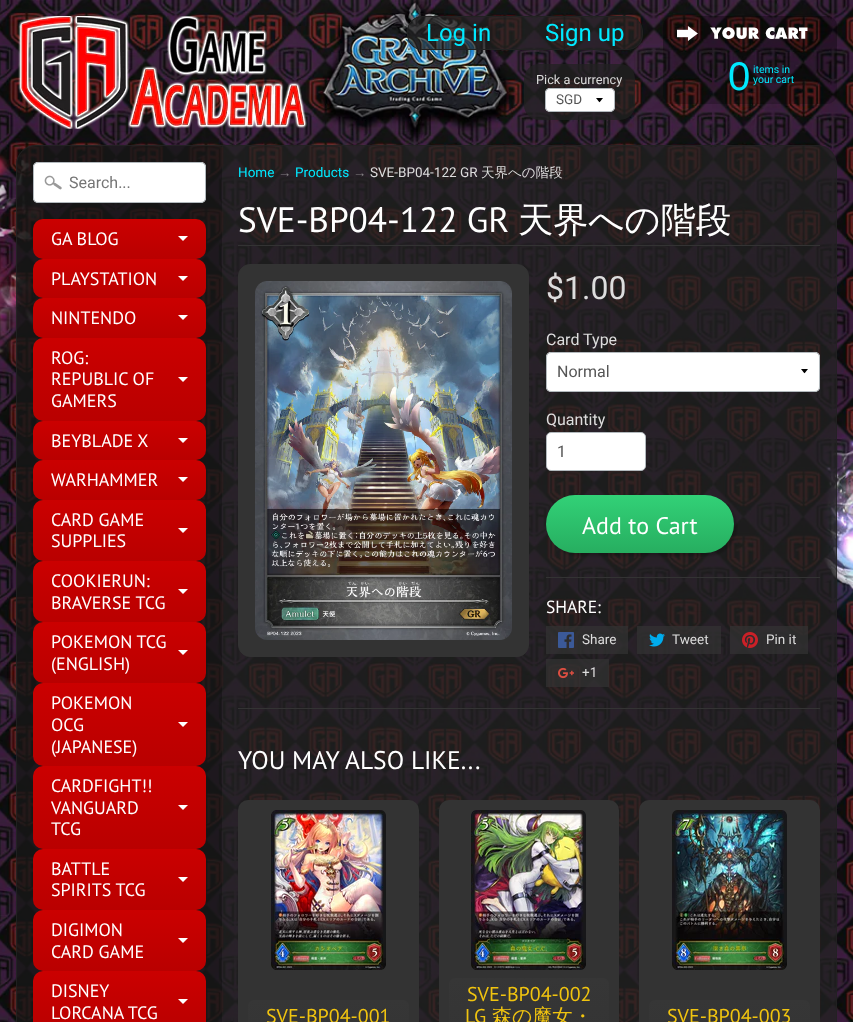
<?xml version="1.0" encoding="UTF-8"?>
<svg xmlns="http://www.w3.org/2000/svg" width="853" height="1022">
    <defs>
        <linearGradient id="g1" gradientUnits="userSpaceOnUse" x1="120" y1="219" x2="120" y2="259"><stop offset="0" stop-color="#CB0000"/><stop offset="1" stop-color="#B90000"/></linearGradient>
        <linearGradient id="g2" gradientUnits="userSpaceOnUse" x1="120" y1="259" x2="120" y2="298"><stop offset="0" stop-color="#CB0000"/><stop offset="1" stop-color="#B90000"/></linearGradient>
        <linearGradient id="g3" gradientUnits="userSpaceOnUse" x1="120" y1="298" x2="120" y2="338"><stop offset="0" stop-color="#CB0000"/><stop offset="1" stop-color="#B90000"/></linearGradient>
        <linearGradient id="g4" gradientUnits="userSpaceOnUse" x1="120" y1="338" x2="120" y2="421"><stop offset="0" stop-color="#CB0000"/><stop offset="1" stop-color="#B90000"/></linearGradient>
        <linearGradient id="g5" gradientUnits="userSpaceOnUse" x1="120" y1="421" x2="120" y2="460"><stop offset="0" stop-color="#CB0000"/><stop offset="1" stop-color="#B90000"/></linearGradient>
        <linearGradient id="g6" gradientUnits="userSpaceOnUse" x1="120" y1="460" x2="120" y2="500"><stop offset="0" stop-color="#CB0000"/><stop offset="1" stop-color="#B90000"/></linearGradient>
        <linearGradient id="g7" gradientUnits="userSpaceOnUse" x1="120" y1="500" x2="120" y2="561"><stop offset="0" stop-color="#CB0000"/><stop offset="1" stop-color="#B90000"/></linearGradient>
        <linearGradient id="g8" gradientUnits="userSpaceOnUse" x1="120" y1="561" x2="120" y2="622"><stop offset="0" stop-color="#CB0000"/><stop offset="1" stop-color="#B90000"/></linearGradient>
        <linearGradient id="g9" gradientUnits="userSpaceOnUse" x1="120" y1="622" x2="120" y2="683"><stop offset="0" stop-color="#CB0000"/><stop offset="1" stop-color="#B90000"/></linearGradient>
        <linearGradient id="g10" gradientUnits="userSpaceOnUse" x1="120" y1="683" x2="120" y2="766"><stop offset="0" stop-color="#CB0000"/><stop offset="1" stop-color="#B90000"/></linearGradient>
        <linearGradient id="g11" gradientUnits="userSpaceOnUse" x1="120" y1="766" x2="120" y2="849"><stop offset="0" stop-color="#CB0000"/><stop offset="1" stop-color="#B90000"/></linearGradient>
        <linearGradient id="g12" gradientUnits="userSpaceOnUse" x1="120" y1="849" x2="120" y2="910"><stop offset="0" stop-color="#CB0000"/><stop offset="1" stop-color="#B90000"/></linearGradient>
        <linearGradient id="g13" gradientUnits="userSpaceOnUse" x1="120" y1="910" x2="120" y2="971"><stop offset="0" stop-color="#CB0000"/><stop offset="1" stop-color="#B90000"/></linearGradient>
        <linearGradient id="g14" gradientUnits="userSpaceOnUse" x1="120" y1="971" x2="120" y2="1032"><stop offset="0" stop-color="#CB0000"/><stop offset="1" stop-color="#B90000"/></linearGradient>
        <filter id="blur1" x="-50%" y="-200%" width="200%" height="500%"><feGaussianBlur stdDeviation="1"/></filter>
        <linearGradient id="g15" gradientUnits="userSpaceOnUse" x1="640" y1="495" x2="640" y2="553"><stop offset="0" stop-color="#32D177"/><stop offset="1" stop-color="#27AE60"/></linearGradient>
        <linearGradient id="g16" gradientUnits="userSpaceOnUse" x1="329" y1="1000" x2="329" y2="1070"><stop offset="0" stop-color="#363636"/><stop offset="1" stop-color="#333333"/></linearGradient>
        <linearGradient id="g17" gradientUnits="userSpaceOnUse" x1="529" y1="978" x2="529" y2="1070"><stop offset="0" stop-color="#363636"/><stop offset="1" stop-color="#333333"/></linearGradient>
        <linearGradient id="g18" gradientUnits="userSpaceOnUse" x1="730" y1="1000" x2="730" y2="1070"><stop offset="0" stop-color="#363636"/><stop offset="1" stop-color="#333333"/></linearGradient>
    </defs>
    <rect width="100%" height="100%" fill="#FFFFFF"/>
    <image x="0" y="0" width="853" height="1022" href="img_01.png"/>
    <image x="18" y="16" width="289" height="113" href="img_02.png"/>
    <rect x="407.5" y="16.5" width="235" height="33" rx="14.5" fill="#222222" fill-opacity="0.7" stroke="#222222"/>
    <text x="426" y="41" font-family="Roboto" font-size="24" fill="#00E9FF">Log in</text>
    <text x="545" y="41" font-family="Roboto" font-size="24" fill="#00E9FF">Sign up</text>
    <image x="663" y="16" width="174" height="88" href="img_03.png"/>
    <text x="728" y="90" font-family="Liberation Sans" font-size="40" fill="#00E9FF">0</text>
    <text font-family="Roboto" font-size="10.5" fill="#00E9FF">
        <tspan x="753" y="73">items in</tspan>
        <tspan x="753" y="83">your cart</tspan>
    </text>
    <rect x="524" y="64" width="111" height="56" rx="15" fill="#222222" fill-opacity="0.75"/>
    <text x="536" y="84" font-family="Roboto" font-size="12.75" fill="#DDDDDD">Pick a currency</text>
    <rect x="545" y="88" width="70" height="24" rx="5" fill="#FFFFFF"/>
    <path d="M 596 98 C 600.5 103.5 598.5 103.5 603 98 Z" fill="#000000"/>
    <rect x="545.5" y="88.5" width="69" height="23" rx="4.5" fill="none" stroke="#B2B9BD"/>
    <text x="556" y="104" font-family="Roboto" font-size="13.5" fill="#555555">SGD</text>
    <rect x="16" y="145" width="821" height="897" rx="20" fill="#222222" fill-opacity="0.75"/>
    <rect x="16.5" y="145.5" width="820" height="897" rx="19.5" fill="none" stroke="#222222" stroke-opacity="0.7"/>
    <path d="M 36 146 H 222 V 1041 H 36 C 25.5 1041 17 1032.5 17 1022 V 165 C 17 154.5 25.5 146 36 146 Z" fill="#000000" fill-opacity="0.25"/>
    <rect x="33" y="162" width="173" height="41" rx="5" fill="#FFFFFF"/>
    <image x="44" y="175" width="18" height="15" href="img_04.png"/>
    <rect x="33.5" y="162.5" width="172" height="40" rx="4.5" fill="none" stroke="#B2B9BD"/>
    <text x="69" y="188" font-family="Roboto" font-size="16" fill="#757575">Search...</text>
    <rect x="33" y="219" width="173" height="40" rx="10" fill="url(#g1)"/>
    <text x="51" y="245" font-family="PT Sans" font-size="18" fill="#FFFFFF">GA BLOG</text>
    <path d="M 178 236 H 188 L 183 241 Z" fill="#FFFFFF"/>
    <rect x="33" y="259" width="173" height="39" rx="10" fill="url(#g2)"/>
    <text x="51" y="285" font-family="PT Sans" font-size="18" fill="#FFFFFF">PLAYSTATION</text>
    <path d="M 178 276 H 188 L 183 281 Z" fill="#FFFFFF"/>
    <rect x="33" y="298" width="173" height="40" rx="10" fill="url(#g3)"/>
    <text x="51" y="324" font-family="PT Sans" font-size="18" fill="#FFFFFF">NINTENDO</text>
    <path d="M 178 315 H 188 L 183 320 Z" fill="#FFFFFF"/>
    <rect x="33" y="338" width="173" height="83" rx="10" fill="url(#g4)"/>
    <text font-family="PT Sans" font-size="18" fill="#FFFFFF">
        <tspan x="51" y="364">ROG:</tspan>
        <tspan x="51" y="385">REPUBLIC OF</tspan>
    </text>
    <path d="M 178 377 H 188 L 183 382 Z" fill="#FFFFFF"/>
    <text x="51" y="407" font-family="PT Sans" font-size="18" fill="#FFFFFF">GAMERS</text>
    <rect x="33" y="421" width="173" height="39" rx="10" fill="url(#g5)"/>
    <text x="51" y="447" font-family="PT Sans" font-size="18" fill="#FFFFFF">BEYBLADE X</text>
    <path d="M 178 438 H 188 L 183 443 Z" fill="#FFFFFF"/>
    <rect x="33" y="460" width="173" height="40" rx="10" fill="url(#g6)"/>
    <text x="51" y="486" font-family="PT Sans" font-size="18" fill="#FFFFFF">WARHAMMER</text>
    <path d="M 178 477 H 188 L 183 482 Z" fill="#FFFFFF"/>
    <rect x="33" y="500" width="173" height="61" rx="10" fill="url(#g7)"/>
    <text x="51" y="526" font-family="PT Sans" font-size="18" fill="#FFFFFF">CARD GAME</text>
    <path d="M 178 528 H 188 L 183 533 Z" fill="#FFFFFF"/>
    <text x="51" y="547" font-family="PT Sans" font-size="18" fill="#FFFFFF">SUPPLIES</text>
    <rect x="33" y="561" width="173" height="61" rx="10" fill="url(#g8)"/>
    <text x="51" y="587" font-family="PT Sans" font-size="18" fill="#FFFFFF">COOKIERUN:</text>
    <path d="M 178 589 H 188 L 183 594 Z" fill="#FFFFFF"/>
    <text x="51" y="609" font-family="PT Sans" font-size="18" fill="#FFFFFF">BRAVERSE TCG</text>
    <rect x="33" y="622" width="173" height="61" rx="10" fill="url(#g9)"/>
    <text x="51" y="648" font-family="PT Sans" font-size="18" fill="#FFFFFF">POKEMON TCG</text>
    <path d="M 178 650 H 188 L 183 655 Z" fill="#FFFFFF"/>
    <text x="51" y="670" font-family="PT Sans" font-size="18" fill="#FFFFFF">(ENGLISH)</text>
    <rect x="33" y="683" width="173" height="83" rx="10" fill="url(#g10)"/>
    <text font-family="PT Sans" font-size="18" fill="#FFFFFF">
        <tspan x="51" y="709">POKEMON</tspan>
        <tspan x="51" y="731">OCG</tspan>
    </text>
    <path d="M 178 722 H 188 L 183 727 Z" fill="#FFFFFF"/>
    <text x="51" y="753" font-family="PT Sans" font-size="18" fill="#FFFFFF">(JAPANESE)</text>
    <rect x="33" y="766" width="173" height="83" rx="10" fill="url(#g11)"/>
    <text font-family="PT Sans" font-size="18" fill="#FFFFFF">
        <tspan x="51" y="792">CARDFIGHT!!</tspan>
        <tspan x="51" y="814">VANGUARD</tspan>
    </text>
    <path d="M 178 805 H 188 L 183 810 Z" fill="#FFFFFF"/>
    <text x="51" y="835" font-family="PT Sans" font-size="18" fill="#FFFFFF">TCG</text>
    <rect x="33" y="849" width="173" height="61" rx="10" fill="url(#g12)"/>
    <text x="51" y="875" font-family="PT Sans" font-size="18" fill="#FFFFFF">BATTLE</text>
    <path d="M 178 877 H 188 L 183 882 Z" fill="#FFFFFF"/>
    <text x="51" y="896" font-family="PT Sans" font-size="18" fill="#FFFFFF">SPIRITS TCG</text>
    <rect x="33" y="910" width="173" height="61" rx="10" fill="url(#g13)"/>
    <text x="51" y="936" font-family="PT Sans" font-size="18" fill="#FFFFFF">DIGIMON</text>
    <path d="M 178 938 H 188 L 183 943 Z" fill="#FFFFFF"/>
    <text x="51" y="958" font-family="PT Sans" font-size="18" fill="#FFFFFF">CARD GAME</text>
    <rect x="33" y="971" width="173" height="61" rx="10" fill="url(#g14)"/>
    <text x="51" y="997" font-family="PT Sans" font-size="18" fill="#FFFFFF">DISNEY</text>
    <path d="M 178 999 H 188 L 183 1004 Z" fill="#FFFFFF"/>
    <text x="51" y="1019" font-family="PT Sans" font-size="18" fill="#FFFFFF">LORCANA TCG</text>
    <text x="238" y="177" font-family="Roboto" font-size="13.5" fill="#00E9FF">Home</text>
    <text x="278" y="177" font-family="Liberation Sans" font-size="13.5" fill="#837F83">→</text>
    <text x="295" y="177" font-family="Roboto" font-size="13.5" fill="#00E9FF">Products</text>
    <text x="353" y="177" font-family="Liberation Sans" font-size="13.5" fill="#837F83">→</text>
    <text x="370" y="177" font-family="Roboto" font-size="13.5" fill="#DDDDDD">SVE-BP04-122 GR</text>
    <text x="481" y="177" font-family="WenQuanYi Zen Hei" font-size="13.5" font-weight="500" fill="#DDDDDD">天界への階段</text>
    <rect x="238" y="245" width="582" height="1" fill="#333333"/>
    <text x="238" y="232" font-family="PT Sans" font-size="35.25" fill="#FFFFFF">SVE-BP04-122 GR</text>
    <text x="518" y="232" font-family="WenQuanYi Zen Hei" font-size="35.25" font-weight="500" fill="#FFFFFF">天界への階段</text>
    <rect x="238.5" y="264.5" width="290" height="392" rx="11.5" fill="#333333" stroke="#333333"/>
    <image x="255" y="281" width="257" height="359" href="img_05.png"/>
    <text x="546" y="299" font-family="Roboto" font-size="32" fill="#DDDDDD">$1.00</text>
    <text x="546" y="345" font-family="Roboto" font-size="16" fill="#DDDDDD">Card Type</text>
    <rect x="546" y="352" width="274" height="40" rx="5" fill="#FFFFFF"/>
    <path d="M 801 369 C 805.5 374.5 803.5 374.5 808 369 Z" fill="#000000"/>
    <rect x="546.5" y="352.5" width="273" height="39" rx="4.5" fill="none" stroke="#B2B9BD"/>
    <text x="557" y="377" font-family="Roboto" font-size="16" fill="#555555">Normal</text>
    <text x="546" y="425" font-family="Roboto" font-size="16" fill="#DDDDDD">Quantity</text>
    <rect x="546.5" y="432.5" width="99" height="38" rx="4.5" fill="#FFFFFF" stroke="#B2B9BD"/>
    <text x="557" y="457" font-family="Roboto" font-size="16" fill="#555555">1</text>
    <rect x="549" y="498" width="188" height="58" rx="29" fill="#000000" fill-opacity="0.2" filter="url(#blur1)"/>
    <rect x="546" y="495" width="188" height="58" rx="29" fill="url(#g15)"/>
    <text x="582" y="534" font-family="PT Sans" font-size="24" fill="#FFFFFF">Add to Cart</text>
    <rect x="546" y="577" width="274" height="1" fill="#333333"/>
    <text x="546" y="613" font-family="PT Sans" font-size="17.5" fill="#FFFFFF">SHARE:</text>
    <rect x="546" y="626" width="82" height="28" fill="#333333" fill-opacity="0.7"/>
    <image x="558" y="632" width="16" height="16" href="img_06.png"/>
    <text x="582" y="644" font-family="Roboto" font-size="13.5" fill="#DDDDDD">Share</text>
    <rect x="637" y="626" width="84" height="28" fill="#333333" fill-opacity="0.7"/>
    <image x="649" y="633" width="16" height="14" href="img_07.png"/>
    <text x="672" y="644" font-family="Roboto" font-size="13.5" fill="#DDDDDD">Tweet</text>
    <rect x="730" y="626" width="78" height="28" fill="#333333" fill-opacity="0.7"/>
    <image x="742" y="632" width="16" height="16" href="img_08.png"/>
    <text x="766" y="644" font-family="Roboto" font-size="13.5" fill="#DDDDDD">Pin it</text>
    <rect x="546" y="659" width="63" height="28" fill="#333333" fill-opacity="0.7"/>
    <image x="558" y="667" width="16" height="12" href="img_09.png"/>
    <text x="582" y="677" font-family="Roboto" font-size="13.5" fill="#DDDDDD">+1</text>
    <rect x="238" y="708" width="582" height="1" fill="#333333"/>
    <text x="238" y="769" font-family="PT Sans" font-size="25.5" fill="#FFFFFF">YOU MAY ALSO LIKE...</text>
    <rect x="238" y="800" width="181" height="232" rx="10" fill="#333333"/>
    <image x="271" y="810" width="115" height="160" href="img_10.png"/>
    <rect x="248" y="1000" width="161" height="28" rx="6" fill="url(#g16)"/>
    <text x="266" y="1023" font-family="PT Sans" font-size="20" fill="#F1C40F">SVE-BP04-001</text>
    <rect x="439" y="800" width="180" height="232" rx="10" fill="#333333"/>
    <image x="471" y="810" width="115" height="160" href="img_11.png"/>
    <rect x="449" y="978" width="160" height="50" rx="6" fill="url(#g17)"/>
    <text x="467" y="1001" font-family="PT Sans" font-size="20" fill="#F1C40F">SVE-BP04-002</text>
    <text x="465" y="1023" font-family="PT Sans" font-size="20" fill="#F1C40F">LG</text>
    <text x="492" y="1023" font-family="WenQuanYi Zen Hei" font-size="20" font-weight="500" fill="#F1C40F">森の魔女・</text>
    <rect x="639" y="800" width="181" height="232" rx="10" fill="#333333"/>
    <image x="672" y="810" width="115" height="160" href="img_12.png"/>
    <rect x="649" y="1000" width="161" height="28" rx="6" fill="url(#g18)"/>
    <text x="667" y="1023" font-family="PT Sans" font-size="20" fill="#F1C40F">SVE-BP04-003</text>
</svg>
